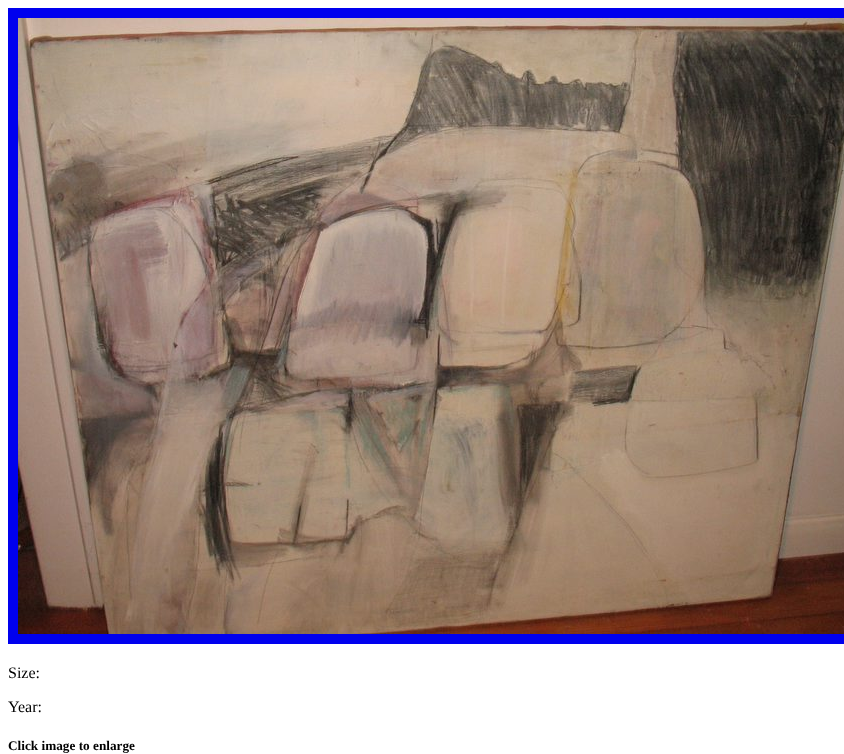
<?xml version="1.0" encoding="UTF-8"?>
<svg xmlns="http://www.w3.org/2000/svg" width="844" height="754">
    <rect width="100%" height="100%" fill="#FFFFFF"/>
    <rect x="13" y="13" width="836" height="626" fill="none" stroke="#0000EE" stroke-width="10"/>
    <image x="18" y="18" width="826" height="616" href="img_01.png"/>
    <text x="8" y="678" font-family="Liberation Serif" font-size="16" fill="#000000">Size:</text>
    <text x="8" y="712" font-family="Liberation Serif" font-size="16" fill="#000000">Year:</text>
    <text x="8" y="750" font-family="Liberation Serif" font-size="13.25" font-weight="700" fill="#000000">Click image to enlarge</text>
</svg>
